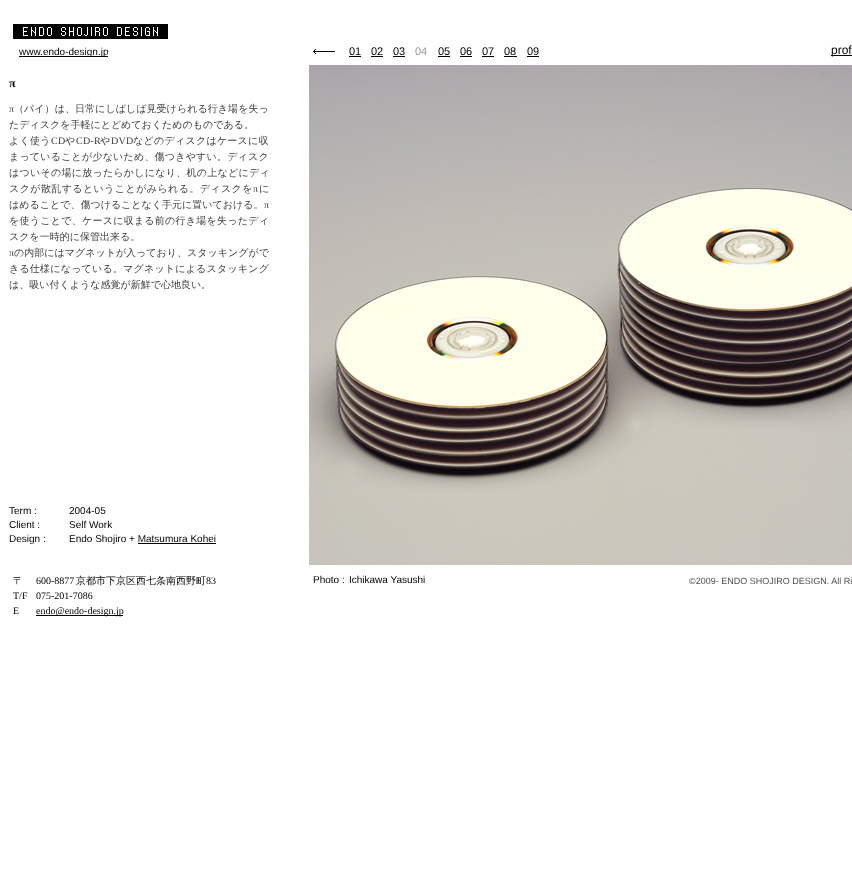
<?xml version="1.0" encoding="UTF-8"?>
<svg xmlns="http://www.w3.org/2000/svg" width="852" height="883">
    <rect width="100%" height="100%" fill="#FFFFFF"/>
    <image x="13" y="24" width="155" height="15" href="img_01.png"/>
    <rect x="19" y="56" width="89" height="1" fill="#000000"/>
    <text x="19" y="55" font-family="Liberation Sans" font-size="10" fill="#000000">www.endo-design.jp</text>
    <image x="313" y="49" width="22" height="5" href="img_02.png"/>
    <text x="349" y="55" font-family="Liberation Sans" font-size="11" fill="#000000">01</text>
    <rect x="349" y="56" width="12" height="1" fill="#000000"/>
    <text x="371" y="55" font-family="Liberation Sans" font-size="11" fill="#000000">02</text>
    <rect x="371" y="56" width="12" height="1" fill="#000000"/>
    <text x="393" y="55" font-family="Liberation Sans" font-size="11" fill="#000000">03</text>
    <rect x="393" y="56" width="12" height="1" fill="#000000"/>
    <text x="415" y="55" font-family="Liberation Sans" font-size="11" fill="#999999">04</text>
    <text x="438" y="55" font-family="Liberation Sans" font-size="11" fill="#000000">05</text>
    <rect x="438" y="56" width="12" height="1" fill="#000000"/>
    <text x="460" y="55" font-family="Liberation Sans" font-size="11" fill="#000000">06</text>
    <rect x="460" y="56" width="12" height="1" fill="#000000"/>
    <text x="482" y="55" font-family="Liberation Sans" font-size="11" fill="#000000">07</text>
    <rect x="482" y="56" width="12" height="1" fill="#000000"/>
    <text x="504" y="55" font-family="Liberation Sans" font-size="11" fill="#000000">08</text>
    <rect x="504" y="56" width="13" height="1" fill="#000000"/>
    <text x="527" y="55" font-family="Liberation Sans" font-size="11" fill="#000000">09</text>
    <rect x="527" y="56" width="12" height="1" fill="#000000"/>
    <rect x="831" y="55" width="21" height="1" fill="#000000"/>
    <text x="831" y="54" font-family="Liberation Sans" font-size="12" fill="#000000">prof</text>
    <text x="9" y="87" font-family="Liberation Serif" font-size="12" font-weight="700" fill="#000000">π</text>
    <text x="9" y="112" font-family="Liberation Serif" font-size="10" letter-spacing="0.05" fill="#3C3C3C">π</text>
    <text x="14" y="112" font-family="WenQuanYi Zen Hei" font-size="10" font-weight="500" letter-spacing="0.05" fill="#3C3C3C">（パイ）は、日常にしばしば見受けられる行き場を失っ</text>
    <text x="9" y="128" font-family="WenQuanYi Zen Hei" font-size="10" font-weight="500" fill="#3C3C3C">たディスクを手軽にとどめておくためのものである。</text>
    <text x="9" y="144" font-family="WenQuanYi Zen Hei" font-size="10" font-weight="500" letter-spacing="0.25" fill="#3C3C3C">よく使う</text>
    <text x="51" y="144" font-family="Liberation Serif" font-size="10" letter-spacing="0.25" fill="#3C3C3C">CD</text>
    <text x="65" y="144" font-family="WenQuanYi Zen Hei" font-size="10" font-weight="500" letter-spacing="0.25" fill="#3C3C3C">や</text>
    <text x="76" y="144" font-family="Liberation Serif" font-size="10" letter-spacing="0.25" fill="#3C3C3C">CD-R</text>
    <text x="100" y="144" font-family="WenQuanYi Zen Hei" font-size="10" font-weight="500" letter-spacing="0.25" fill="#3C3C3C">や</text>
    <text x="111" y="144" font-family="Liberation Serif" font-size="10" letter-spacing="0.25" fill="#3C3C3C">DVD</text>
    <text x="133" y="144" font-family="WenQuanYi Zen Hei" font-size="10" font-weight="500" letter-spacing="0.25" fill="#3C3C3C">などのディスクはケースに収</text>
    <text x="9" y="160" font-family="WenQuanYi Zen Hei" font-size="10" font-weight="500" letter-spacing="0.2" fill="#3C3C3C">まっていることが少ないため、傷つきやすい。ディスク</text>
    <text x="9" y="176" font-family="WenQuanYi Zen Hei" font-size="10" font-weight="500" letter-spacing="0.25" fill="#3C3C3C">はついその場に放ったらかしになり、机の上などにディ</text>
    <text x="9" y="192" font-family="WenQuanYi Zen Hei" font-size="10" font-weight="500" letter-spacing="0.4" fill="#3C3C3C">スクが散乱するということがみられる。ディスクを</text>
    <text x="253" y="192" font-family="Liberation Serif" font-size="10" letter-spacing="0.4" fill="#3C3C3C">π</text>
    <text x="259" y="192" font-family="WenQuanYi Zen Hei" font-size="10" font-weight="500" letter-spacing="0.4" fill="#3C3C3C">に</text>
    <text x="9" y="208" font-family="WenQuanYi Zen Hei" font-size="10" font-weight="500" fill="#3C3C3C">はめることで、傷つけることなく手元に置いておける。</text>
    <text x="264" y="208" font-family="Liberation Serif" font-size="10" fill="#3C3C3C">π</text>
    <text x="9" y="224" font-family="WenQuanYi Zen Hei" font-size="10" font-weight="500" letter-spacing="0.25" fill="#3C3C3C">を使うことで、ケースに収まる前の行き場を失ったディ</text>
    <text x="9" y="240" font-family="WenQuanYi Zen Hei" font-size="10" font-weight="500" fill="#3C3C3C">スクを一時的に保管出来る。</text>
    <text x="9" y="256" font-family="Liberation Serif" font-size="10" fill="#3C3C3C">π</text>
    <text x="14" y="256" font-family="WenQuanYi Zen Hei" font-size="10" font-weight="500" fill="#3C3C3C">の内部にはマグネットが入っており、スタッキングがで</text>
    <text x="9" y="272" font-family="WenQuanYi Zen Hei" font-size="10" font-weight="500" letter-spacing="0.2" fill="#3C3C3C">きる仕様になっている。マグネットによるスタッキング</text>
    <text x="9" y="288" font-family="WenQuanYi Zen Hei" font-size="10" font-weight="500" fill="#3C3C3C">は、吸い付くような感覚が新鮮で心地良い。</text>
    <text font-family="Liberation Sans" font-size="10" fill="#000000">
        <tspan x="9" y="514">Term :</tspan>
        <tspan x="9" y="528">Client :</tspan>
        <tspan x="9" y="542">Design :</tspan>
    </text>
    <text font-family="Liberation Sans" font-size="10" fill="#000000">
        <tspan x="69" y="514">2004-05</tspan>
        <tspan x="69" y="528">Self Work</tspan>
        <tspan x="69" y="542">Endo Shojiro + Matsumura Kohei</tspan>
    </text>
    <rect x="138" y="543" width="78" height="1" fill="#000000"/>
    <image x="309" y="65" width="543" height="500" href="img_03.png"/>
    <text x="13" y="584" font-family="WenQuanYi Zen Hei" font-size="10" font-weight="500" fill="#000000">〒</text>
    <text font-family="Liberation Serif" font-size="10" fill="#000000">
        <tspan x="13" y="599">T/F</tspan>
        <tspan x="13" y="614">E</tspan>
    </text>
    <text x="36" y="584" font-family="Liberation Serif" font-size="10" fill="#000000">600-8877</text>
    <text x="76" y="584" font-family="WenQuanYi Zen Hei" font-size="10" font-weight="500" fill="#000000">京都市下京区西七条南西野町</text>
    <text x="206" y="584" font-family="Liberation Serif" font-size="10" fill="#000000">83</text>
    <text x="36" y="599" font-family="Liberation Serif" font-size="10" fill="#000000">075-201-7086</text>
    <rect x="36" y="615" width="87" height="1" fill="#000000"/>
    <text x="36" y="614" font-family="Liberation Serif" font-size="10" fill="#000000">endo@endo-design.jp</text>
    <text x="313" y="583" font-family="Liberation Sans" font-size="10" fill="#000000">Photo :</text>
    <text x="349" y="583" font-family="Liberation Sans" font-size="10" fill="#000000">Ichikawa Yasushi</text>
    <text x="689" y="584" font-family="Liberation Sans" font-size="9" fill="#505050">©2009- ENDO SHOJIRO DESIGN. All Ri</text>
</svg>
